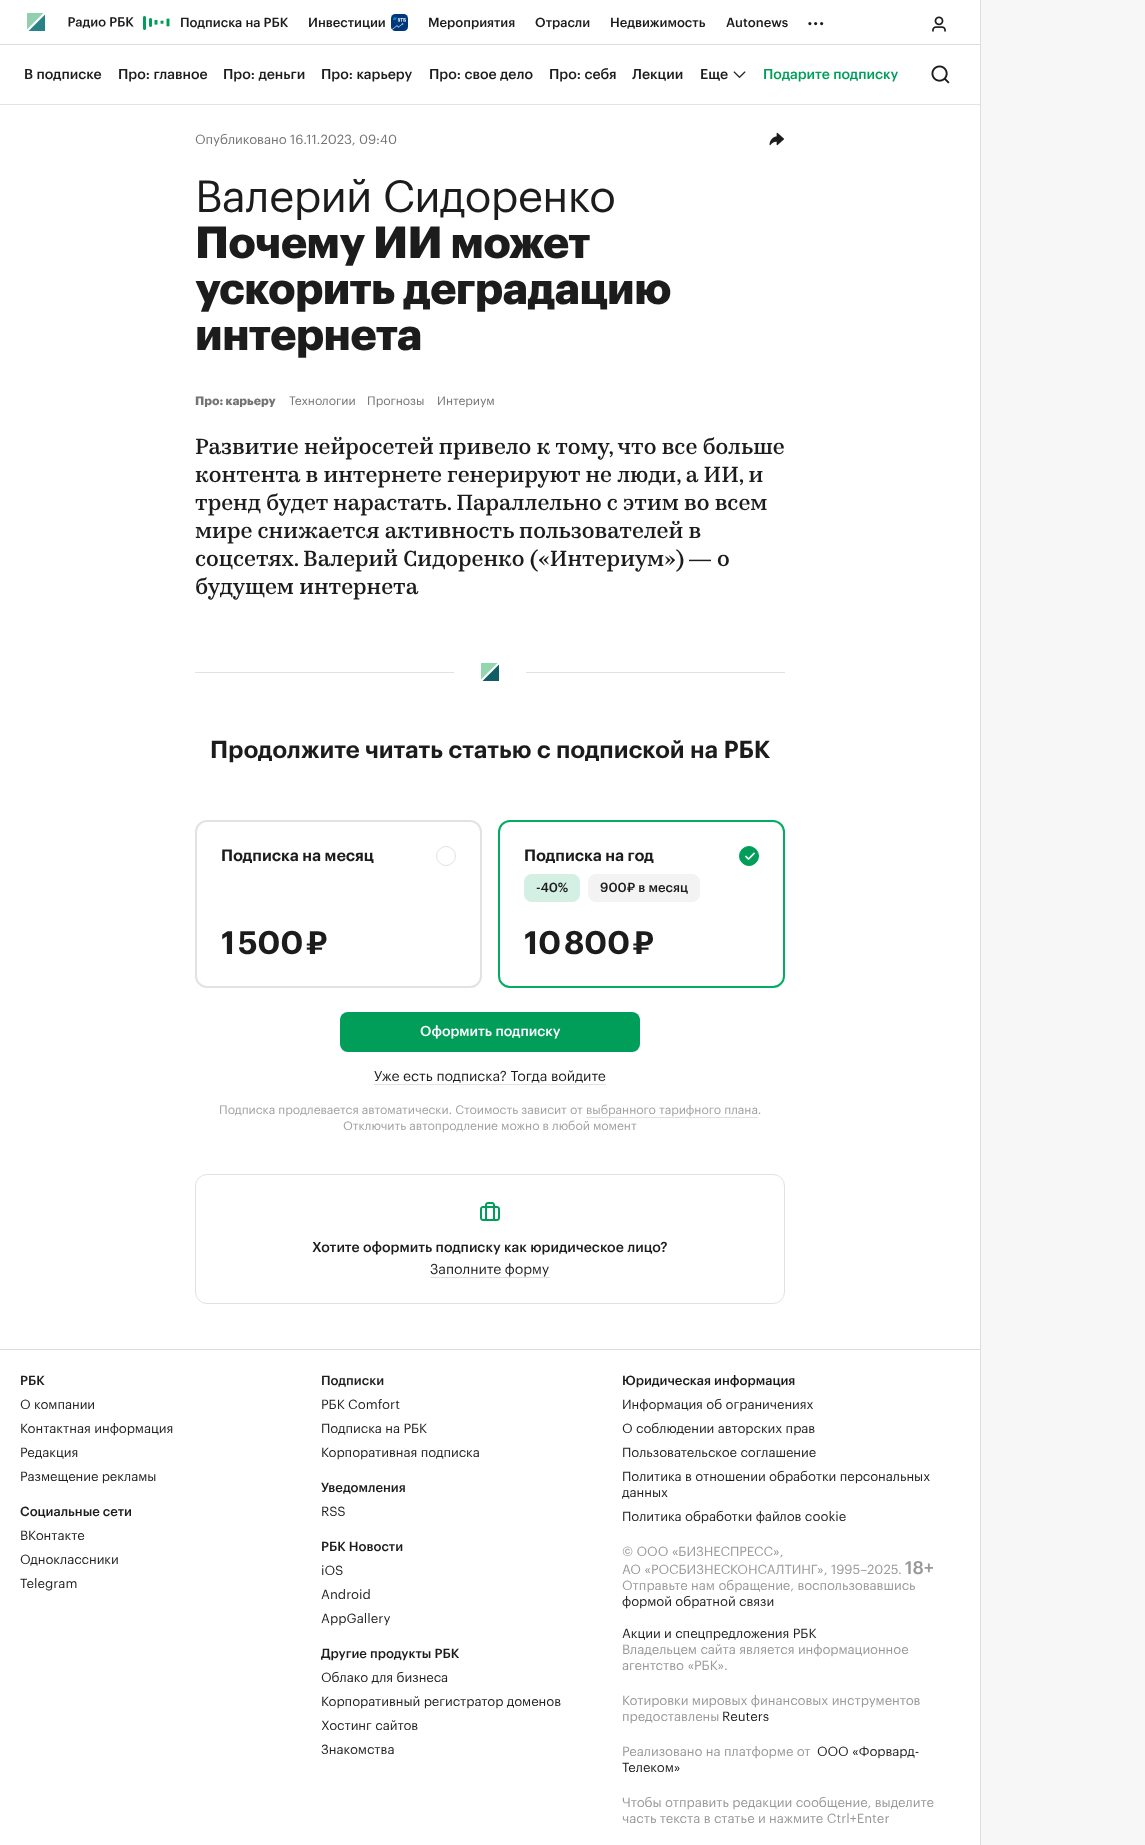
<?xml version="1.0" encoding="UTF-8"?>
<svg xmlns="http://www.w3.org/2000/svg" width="1145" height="1845">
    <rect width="100%" height="100%" fill="#F7F7F7"/>
    <rect x="0" y="0" width="980" height="44" fill="#FFFFFF"/>
    <rect x="0" y="44" width="980" height="1" fill="#DDDDDD"/>
    <image x="27" y="13" width="18" height="18" href="img_01.png"/>
    <image x="68" y="16" width="102" height="14" href="img_02.png"/>
    <text x="180" y="27" font-family="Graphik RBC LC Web" font-size="13" font-weight="500" fill="#1C1C1C">Подписка на РБК</text>
    <text x="308" y="27" font-family="Graphik RBC LC Web" font-size="13" font-weight="500" fill="#1C1C1C">Инвестиции</text>
    <image x="391" y="14" width="17" height="17" href="img_03.png"/>
    <text x="428" y="27" font-family="Graphik RBC LC Web" font-size="13" font-weight="500" fill="#1C1C1C">Мероприятия</text>
    <text x="535" y="27" font-family="Graphik RBC LC Web" font-size="13" font-weight="500" fill="#1C1C1C">Отрасли</text>
    <text x="610" y="27" font-family="Graphik RBC LC Web" font-size="13" font-weight="500" fill="#1C1C1C">Недвижимость</text>
    <text x="726" y="27" font-family="Graphik RBC LC Web" font-size="13" font-weight="500" fill="#1C1C1C">Autonews</text>
    <text x="807" y="25" font-family="Graphik RBC LC Web" font-size="20" font-weight="500" fill="#1C1C1C">...</text>
    <image x="932" y="16" width="14" height="16" href="img_04.png"/>
    <rect x="0" y="45" width="980" height="1800" fill="#FFFFFF"/>
    <rect x="0" y="104" width="980" height="1" fill="#E3E3E3"/>
    <text x="24" y="79" font-family="Graphik RBC LC Web" font-size="14" font-weight="500" fill="#1C1C1C">В подписке</text>
    <text x="118" y="79" font-family="Graphik RBC LC Web" font-size="14" font-weight="500" fill="#1C1C1C">Про: главное</text>
    <text x="223" y="79" font-family="Graphik RBC LC Web" font-size="14" font-weight="500" fill="#1C1C1C">Про: деньги</text>
    <text x="321" y="79" font-family="Graphik RBC LC Web" font-size="14" font-weight="500" fill="#1C1C1C">Про: карьеру</text>
    <text x="429" y="79" font-family="Graphik RBC LC Web" font-size="14" font-weight="500" fill="#1C1C1C">Про: свое дело</text>
    <text x="549" y="79" font-family="Graphik RBC LC Web" font-size="14" font-weight="500" fill="#1C1C1C">Про: себя</text>
    <text x="632" y="79" font-family="Graphik RBC LC Web" font-size="14" font-weight="500" fill="#1C1C1C">Лекции</text>
    <text x="700" y="79" font-family="Graphik RBC LC Web" font-size="14" font-weight="500" fill="#1C1C1C">Еще</text>
    <image x="733" y="71" width="13" height="7" href="img_05.png"/>
    <text x="763" y="79" font-family="Graphik RBC LC Web" font-size="14" font-weight="500" fill="#009E59">Подарите подписку</text>
    <image x="931" y="65" width="19" height="19" href="img_06.png"/>
    <rect x="980" y="0" width="1" height="1845" fill="#DDDDDD"/>
    <text x="195" y="144" font-family="Graphik RBC LC Web" font-size="13" fill="#747474">Опубликовано 16.11.2023, 09:40</text>
    <image x="769" y="132" width="15" height="14" href="img_07.png"/>
    <text x="195" y="212" font-family="Graphik RBC LC Web" font-size="44" letter-spacing="-0.5" fill="#1C1C1C">Валерий Сидоренко</text>
    <text font-family="Graphik RBC LC Web" font-size="44" font-weight="700" letter-spacing="-0.5" fill="#1C1C1C">
        <tspan x="195" y="258">Почему ИИ может</tspan>
        <tspan x="195" y="304">ускорить деградацию</tspan>
        <tspan x="195" y="350">интернета</tspan>
    </text>
    <text x="195" y="405" font-family="Graphik RBC LC Web" font-size="12" font-weight="700" fill="#747474">Про: карьеру</text>
    <text x="289" y="405" font-family="Graphik RBC LC Web" font-size="12" fill="#747474">Технологии</text>
    <text x="367" y="405" font-family="Graphik RBC LC Web" font-size="12" fill="#747474">Прогнозы</text>
    <text x="437" y="405" font-family="Graphik RBC LC Web" font-size="12" fill="#747474">Интериум</text>
    <text font-family="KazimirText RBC" font-size="22" font-weight="500" fill="#1C1C1C">
        <tspan x="195" y="454">Развитие нейросетей привело к тому, что все больше</tspan>
        <tspan x="195" y="482">контента в интернете генерируют не люди, а ИИ, и</tspan>
        <tspan x="195" y="510">тренд будет нарастать. Параллельно с этим во всем</tspan>
        <tspan x="195" y="538">мире снижается активность пользователей в</tspan>
        <tspan x="195" y="566">соцсетях. Валерий Сидоренко («Интериум»)</tspan>
    </text>
    <text x="689" y="566" font-family="Liberation Sans" font-size="22" fill="#1C1C1C">—</text>
    <text x="717" y="566" font-family="KazimirText RBC" font-size="22" font-weight="500" fill="#1C1C1C">о</text>
    <text x="195" y="594" font-family="KazimirText RBC" font-size="22" font-weight="500" fill="#1C1C1C">будущем интернета</text>
    <rect x="195" y="672" width="259" height="1" fill="#E2E2E2"/>
    <image x="481" y="663" width="18" height="18" href="img_08.png"/>
    <rect x="526" y="672" width="259" height="1" fill="#E2E2E2"/>
    <text x="210" y="758" font-family="Graphik RBC LC Web" font-size="24" font-weight="600" fill="#1C1C1C">Продолжите читать статью с подпиской на РБК</text>
    <rect x="196" y="821" width="285" height="166" rx="11" fill="none" stroke="#E2E2E2" stroke-width="2"/>
    <text x="221" y="861" font-family="Graphik RBC LC Web" font-size="16" font-weight="600" fill="#1C1C1C">Подписка на месяц</text>
    <circle cx="446" cy="856" r="9.5" fill="none" stroke="#E2E2E2"/>
    <text x="221" y="954" font-family="Graphik RBC LC Web" font-size="32" font-weight="600" letter-spacing="-0.25" fill="#1C1C1C">1 500 ₽</text>
    <rect x="499" y="821" width="285" height="166" rx="11" fill="none" stroke="#04AB63" stroke-width="2"/>
    <text x="524" y="861" font-family="Graphik RBC LC Web" font-size="16" font-weight="600" fill="#1C1C1C">Подписка на год</text>
    <circle cx="749" cy="856" r="9.5" fill="#009E59" stroke="#009E59"/>
    <image x="744" y="852" width="12" height="8" href="img_09.png"/>
    <rect x="524" y="874" width="56" height="28" rx="8" fill="#D4EFE3"/>
    <text x="536" y="892" font-family="Graphik RBC LC Web" font-size="13" font-weight="500" fill="#1C1C1C">-40%</text>
    <rect x="588" y="874" width="112" height="28" rx="8" fill="#F3F3F3"/>
    <text x="600" y="892" font-family="Graphik RBC LC Web" font-size="13" font-weight="500" fill="#1C1C1C">900₽ в месяц</text>
    <text x="524" y="954" font-family="Graphik RBC LC Web" font-size="32" font-weight="600" letter-spacing="-0.25" fill="#1C1C1C">10 800 ₽</text>
    <rect x="340" y="1012" width="300" height="40" rx="8" fill="#009E59"/>
    <text x="420" y="1036" font-family="Graphik RBC LC Web" font-size="14" font-weight="500" fill="#FFFFFF">Оформить подписку</text>
    <text x="374" y="1081" font-family="Graphik RBC LC Web" font-size="14" fill="#1C1C1C">Уже есть подписка? Тогда войдите</text>
    <rect x="374" y="1084" width="232" height="1" fill="#E2E2E2"/>
    <text x="219" y="1114" font-family="Graphik RBC LC Web" font-size="12" fill="#A1A1A1">Подписка продлевается автоматически. Стоимость зависит от выбранного тарифного плана.</text>
    <rect x="586" y="1117" width="172" height="1" fill="#E2E2E2"/>
    <text x="343" y="1130" font-family="Graphik RBC LC Web" font-size="12" fill="#A1A1A1">Отключить автопродление можно в любой момент</text>
    <rect x="195.5" y="1174.5" width="589" height="129" rx="11.5" fill="none" stroke="#E2E2E2"/>
    <image x="480" y="1202" width="20" height="19" href="img_10.png"/>
    <text x="312" y="1252" font-family="Graphik RBC LC Web" font-size="14" font-weight="500" fill="#1C1C1C">Хотите оформить подписку как юридическое лицо?</text>
    <text x="430" y="1274" font-family="Graphik RBC LC Web" font-size="14" fill="#1C1C1C">Заполните форму</text>
    <rect x="430" y="1277" width="120" height="1" fill="#E2E2E2"/>
    <rect x="0" y="1349" width="980" height="1" fill="#DDDDDD"/>
    <text x="20" y="1385" font-family="Graphik RBC LC Web" font-size="13" font-weight="500" fill="#1C1C1C">РБК</text>
    <text font-family="Graphik RBC LC Web" font-size="13" fill="#222222">
        <tspan x="20" y="1409">О компании</tspan>
        <tspan x="20" y="1433">Контактная информация</tspan>
        <tspan x="20" y="1457">Редакция</tspan>
        <tspan x="20" y="1481">Размещение рекламы</tspan>
    </text>
    <text x="20" y="1516" font-family="Graphik RBC LC Web" font-size="13" font-weight="500" fill="#1C1C1C">Социальные сети</text>
    <text font-family="Graphik RBC LC Web" font-size="13" fill="#222222">
        <tspan x="20" y="1540">ВКонтакте</tspan>
        <tspan x="20" y="1564">Одноклассники</tspan>
        <tspan x="20" y="1588">Telegram</tspan>
    </text>
    <text x="321" y="1385" font-family="Graphik RBC LC Web" font-size="13" font-weight="500" fill="#1C1C1C">Подписки</text>
    <text font-family="Graphik RBC LC Web" font-size="13" fill="#222222">
        <tspan x="321" y="1409">РБК Comfort</tspan>
        <tspan x="321" y="1433">Подписка на РБК</tspan>
        <tspan x="321" y="1457">Корпоративная подписка</tspan>
    </text>
    <text x="321" y="1492" font-family="Graphik RBC LC Web" font-size="13" font-weight="500" fill="#1C1C1C">Уведомления</text>
    <text x="321" y="1516" font-family="Graphik RBC LC Web" font-size="13" fill="#222222">RSS</text>
    <text x="321" y="1551" font-family="Graphik RBC LC Web" font-size="13" font-weight="500" fill="#1C1C1C">РБК Новости</text>
    <text font-family="Graphik RBC LC Web" font-size="13" fill="#222222">
        <tspan x="321" y="1575">iOS</tspan>
        <tspan x="321" y="1599">Android</tspan>
        <tspan x="321" y="1623">AppGallery</tspan>
    </text>
    <text x="321" y="1658" font-family="Graphik RBC LC Web" font-size="13" font-weight="500" fill="#1C1C1C">Другие продукты РБК</text>
    <text font-family="Graphik RBC LC Web" font-size="13" fill="#222222">
        <tspan x="321" y="1682">Облако для бизнеса</tspan>
        <tspan x="321" y="1706">Корпоративный регистратор доменов</tspan>
        <tspan x="321" y="1730">Хостинг сайтов</tspan>
        <tspan x="321" y="1754">Знакомства</tspan>
    </text>
    <text x="622" y="1385" font-family="Graphik RBC LC Web" font-size="13" font-weight="500" fill="#1C1C1C">Юридическая информация</text>
    <text font-family="Graphik RBC LC Web" font-size="13" fill="#222222">
        <tspan x="622" y="1409">Информация об ограничениях</tspan>
        <tspan x="622" y="1433">О соблюдении авторских прав</tspan>
        <tspan x="622" y="1457">Пользовательское соглашение</tspan>
        <tspan x="622" y="1481">Политика в отношении обработки персональных</tspan>
        <tspan x="622" y="1497">данных</tspan>
        <tspan x="622" y="1521">Политика обработки файлов cookie</tspan>
    </text>
    <text font-family="Graphik RBC LC Web" font-size="13" fill="#999999">
        <tspan x="622" y="1556">© ООО «БИЗНЕСПРЕСС»,</tspan>
        <tspan x="622" y="1574">АО «РОСБИЗНЕСКОНСАЛТИНГ», 1995–2025</tspan>
    </text>
    <text x="898" y="1574" font-family="Graphik RBC LC Web" font-size="13" fill="#999999">.</text>
    <text x="905" y="1574" font-family="Graphik RBC LC Web" font-size="18" font-weight="500" fill="#999999">18+</text>
    <text x="622" y="1590" font-family="Graphik RBC LC Web" font-size="13" fill="#999999">Отправьте нам обращение, воспользовавшись</text>
    <text x="622" y="1606" font-family="Graphik RBC LC Web" font-size="13" fill="#222222">формой обратной связи</text>
    <text x="622" y="1638" font-family="Graphik RBC LC Web" font-size="13" fill="#222222">Акции и спецпредложения РБК</text>
    <text font-family="Graphik RBC LC Web" font-size="13" fill="#999999">
        <tspan x="622" y="1654">Владельцем сайта является информационное</tspan>
        <tspan x="622" y="1670">агентство «РБК».</tspan>
    </text>
    <text font-family="Graphik RBC LC Web" font-size="13" fill="#999999">
        <tspan x="622" y="1705">Котировки мировых финансовых инструментов</tspan>
        <tspan x="622" y="1721">предоставлены</tspan>
    </text>
    <text x="722" y="1721" font-family="Graphik RBC LC Web" font-size="13" fill="#222222">Reuters</text>
    <text x="622" y="1756" font-family="Graphik RBC LC Web" font-size="13" fill="#999999">Реализовано на платформе от</text>
    <text x="817" y="1756" font-family="Graphik RBC LC Web" font-size="13" fill="#222222">ООО «Форвард-</text>
    <text x="622" y="1772" font-family="Graphik RBC LC Web" font-size="13" fill="#222222">Телеком»</text>
    <text font-family="Graphik RBC LC Web" font-size="13" fill="#999999">
        <tspan x="622" y="1807">Чтобы отправить редакции сообщение, выделите</tspan>
        <tspan x="622" y="1823">часть текста в статье и нажмите Ctrl+Enter</tspan>
    </text>
</svg>
